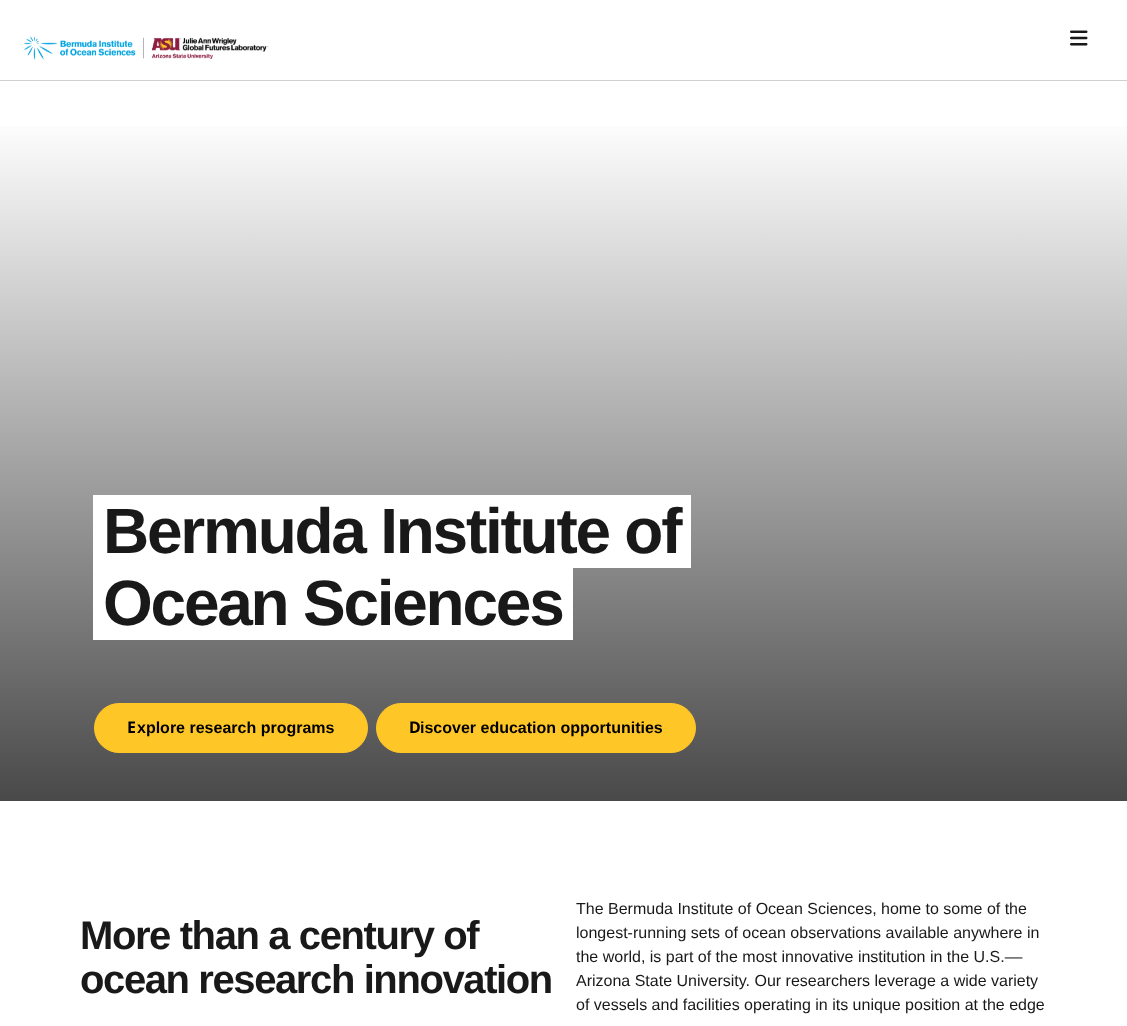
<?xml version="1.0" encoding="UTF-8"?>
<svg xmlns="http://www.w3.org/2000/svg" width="1127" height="1026">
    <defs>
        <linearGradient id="g1" gradientUnits="userSpaceOnUse" x1="564" y1="117" x2="564" y2="801"><stop offset="0" stop-color="#FFFFFF"/><stop offset="1" stop-color="#494949"/></linearGradient>
    </defs>
    <rect width="100%" height="100%" fill="#FFFFFF"/>
    <rect x="0" y="80" width="1127" height="1" fill="#D0D0D0"/>
    <image x="24" y="36" width="245" height="24" href="img_01.png"/>
    <image x="1070" y="30" width="18" height="16" href="img_02.png"/>
    <rect x="0" y="126" width="1127" height="675" fill="url(#g1)"/>
    <rect x="103" y="495" width="588" height="73" fill="#FFFFFF"/>
    <text x="103" y="553" font-family="Liberation Sans" font-size="64" font-weight="700" letter-spacing="-2.25" fill="#191919">Bermuda Institute of</text>
    <rect x="103" y="568" width="470" height="72" fill="#FFFFFF"/>
    <text x="103" y="625" font-family="Liberation Sans" font-size="64" font-weight="700" letter-spacing="-2.25" fill="#191919">Ocean Sciences</text>
    <rect x="93" y="495" width="10" height="145" fill="#FFFFFF"/>
    <rect x="94.5" y="703.5" width="273" height="49" rx="24.5" fill="#FFC627" stroke="#FFC627"/>
    <text x="127" y="733" font-family="Noto Sans" font-size="16" font-weight="700" fill="#000000">E</text>
    <text x="137" y="733" font-family="Liberation Sans" font-size="16" font-weight="700" fill="#000000">xplore research programs</text>
    <rect x="376.5" y="703.5" width="319" height="49" rx="24.5" fill="#FFC627" stroke="#FFC627"/>
    <text x="409" y="733" font-family="Noto Sans" font-size="16" font-weight="700" fill="#000000">D</text>
    <text x="420" y="733" font-family="Liberation Sans" font-size="16" font-weight="700" fill="#000000">iscover education opportunities</text>
    <text font-family="Liberation Sans" font-size="40" font-weight="700" letter-spacing="-1.4" fill="#191919">
        <tspan x="80" y="949">More than a century of</tspan>
        <tspan x="80" y="993">ocean research innovation</tspan>
    </text>
    <text font-family="Liberation Sans" font-size="16" fill="#191919">
        <tspan x="576" y="914">The Bermuda Institute of Ocean Sciences, home to some of the</tspan>
        <tspan x="576" y="938">longest-running sets of ocean observations available anywhere in</tspan>
        <tspan x="576" y="962">the world, is part of the most innovative institution in the U.S.––</tspan>
        <tspan x="576" y="986">Arizona State University. Our researchers leverage a wide variety</tspan>
        <tspan x="576" y="1010">of vessels and facilities operating in its unique position at the edge</tspan>
    </text>
</svg>
